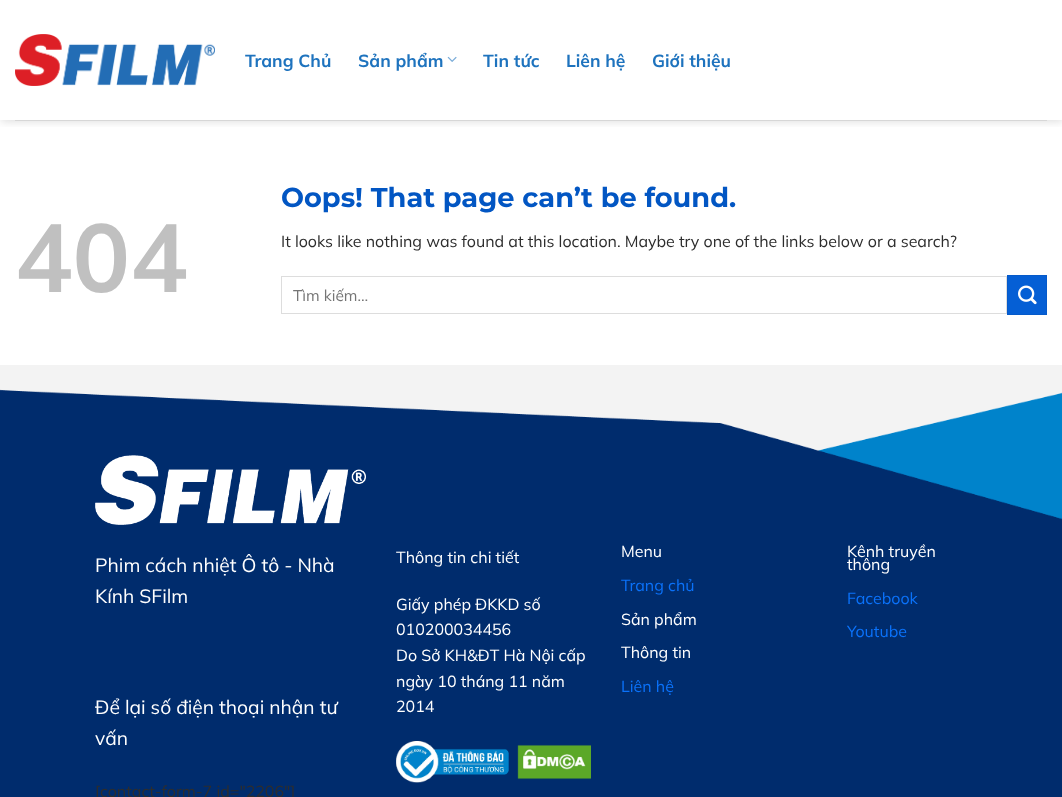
<?xml version="1.0" encoding="UTF-8"?>
<svg xmlns="http://www.w3.org/2000/svg" width="1062" height="797">
    <defs>
        <clipPath id="clip1"><rect x="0" y="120" width="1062" height="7"/></clipPath>
        <filter id="blur1" x="-50%" y="-200%" width="200%" height="500%"><feGaussianBlur stdDeviation="5"/></filter>
    </defs>
    <rect width="100%" height="100%" fill="#FFFFFF"/>
    <g clip-path="url(#clip1)">
        <rect x="1" y="1" width="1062" height="120" fill="#000000" fill-opacity="0.15" filter="url(#blur1)"/>
    </g>
    <image x="15" y="34" width="200" height="52" href="img_01.png"/>
    <text x="245" y="67" font-family="Mulish" font-size="17.5" font-weight="700" fill="#1E73BE">Trang Chủ</text>
    <text x="358" y="67" font-family="Mulish" font-size="17.5" font-weight="700" fill="#1E73BE">Sản phẩm</text>
    <image x="447" y="56" width="10" height="6" href="img_02.png"/>
    <text x="483" y="67" font-family="Mulish" font-size="17.5" font-weight="700" fill="#1E73BE">Tin tức</text>
    <text x="566" y="67" font-family="Mulish" font-size="17.5" font-weight="700" fill="#1E73BE">Liên hệ</text>
    <text x="652" y="67" font-family="Mulish" font-size="17.5" font-weight="700" fill="#1E73BE">Giới thiệu</text>
    <rect x="15" y="120" width="1032" height="1" fill="#D7D7D7"/>
    <text x="15" y="292" font-family="Mulish" font-size="96" font-weight="700" fill="#C0C0C0">404</text>
    <text x="281" y="207" font-family="Montserrat" font-size="27.25" font-weight="700" fill="#0256C3">Oops! That page can’t be found.</text>
    <text x="281" y="247" font-family="Mulish" font-size="16" fill="#2D2D2D">It looks like nothing was found at this location. Maybe try one of the links below or a search?</text>
    <rect x="281.5" y="276.5" width="725" height="37" fill="none" stroke="#DDDDDD"/>
    <text x="293" y="301" font-family="Mulish" font-size="15.5" fill="#757575">Tìm kiếm…</text>
    <rect x="1007.5" y="275.5" width="39" height="39" fill="#055FD5" stroke="#055ACA"/>
    <image x="1018" y="285" width="19" height="20" href="img_03.png"/>
    <rect x="0" y="365" width="1062" height="86" fill="#F3F3F3"/>
    <image x="0" y="389" width="1062" height="408" href="img_04.png"/>
    <image x="95" y="455" width="271" height="70" href="img_05.png"/>
    <text font-family="Mulish" font-size="19.25" fill="#FFFFFF">
        <tspan x="95" y="572">Phim cách nhiệt Ô tô - Nhà</tspan>
        <tspan x="95" y="603">Kính SFilm</tspan>
    </text>
    <text font-family="Mulish" font-size="19.25" fill="#FFFFFF">
        <tspan x="95" y="714">Để lại số điện thoại nhận tư</tspan>
        <tspan x="95" y="745">vấn</tspan>
    </text>
    <text x="95" y="797" font-family="Mulish" font-size="16" fill="#2D2D2D">[contact-form-7 id="2206"]</text>
    <text x="396" y="563" font-family="Mulish" font-size="16" fill="#FFFFFF">Thông tin chi tiết</text>
    <text font-family="Mulish" font-size="16" fill="#FFFFFF">
        <tspan x="396" y="610">Giấy phép ĐKKD số</tspan>
        <tspan x="396" y="635">010200034456</tspan>
        <tspan x="396" y="661">Do Sở KH&amp;ĐT Hà Nội cấp</tspan>
        <tspan x="396" y="687">ngày 10 tháng 11 năm</tspan>
        <tspan x="396" y="712">2014</tspan>
    </text>
    <image x="396" y="741" width="195" height="42" href="img_06.png"/>
    <text x="621" y="557" font-family="Mulish" font-size="16" fill="#FFFFFF">Menu</text>
    <text x="621" y="591" font-family="Mulish" font-size="16" fill="#0A72FA">Trang chủ</text>
    <text x="621" y="625" font-family="Mulish" font-size="16" fill="#FFFFFF">Sản phẩm</text>
    <text x="621" y="658" font-family="Mulish" font-size="16" fill="#FFFFFF">Thông tin</text>
    <text x="621" y="692" font-family="Mulish" font-size="16" fill="#0A72FA">Liên hệ</text>
    <text font-family="Mulish" font-size="16" fill="#FFFFFF">
        <tspan x="847" y="557">Kênh truyền</tspan>
        <tspan x="847" y="570">thông</tspan>
    </text>
    <text x="847" y="604" font-family="Mulish" font-size="16" fill="#0A72FA">Facebook</text>
    <text x="847" y="637" font-family="Mulish" font-size="16" fill="#0A72FA">Youtube</text>
</svg>
